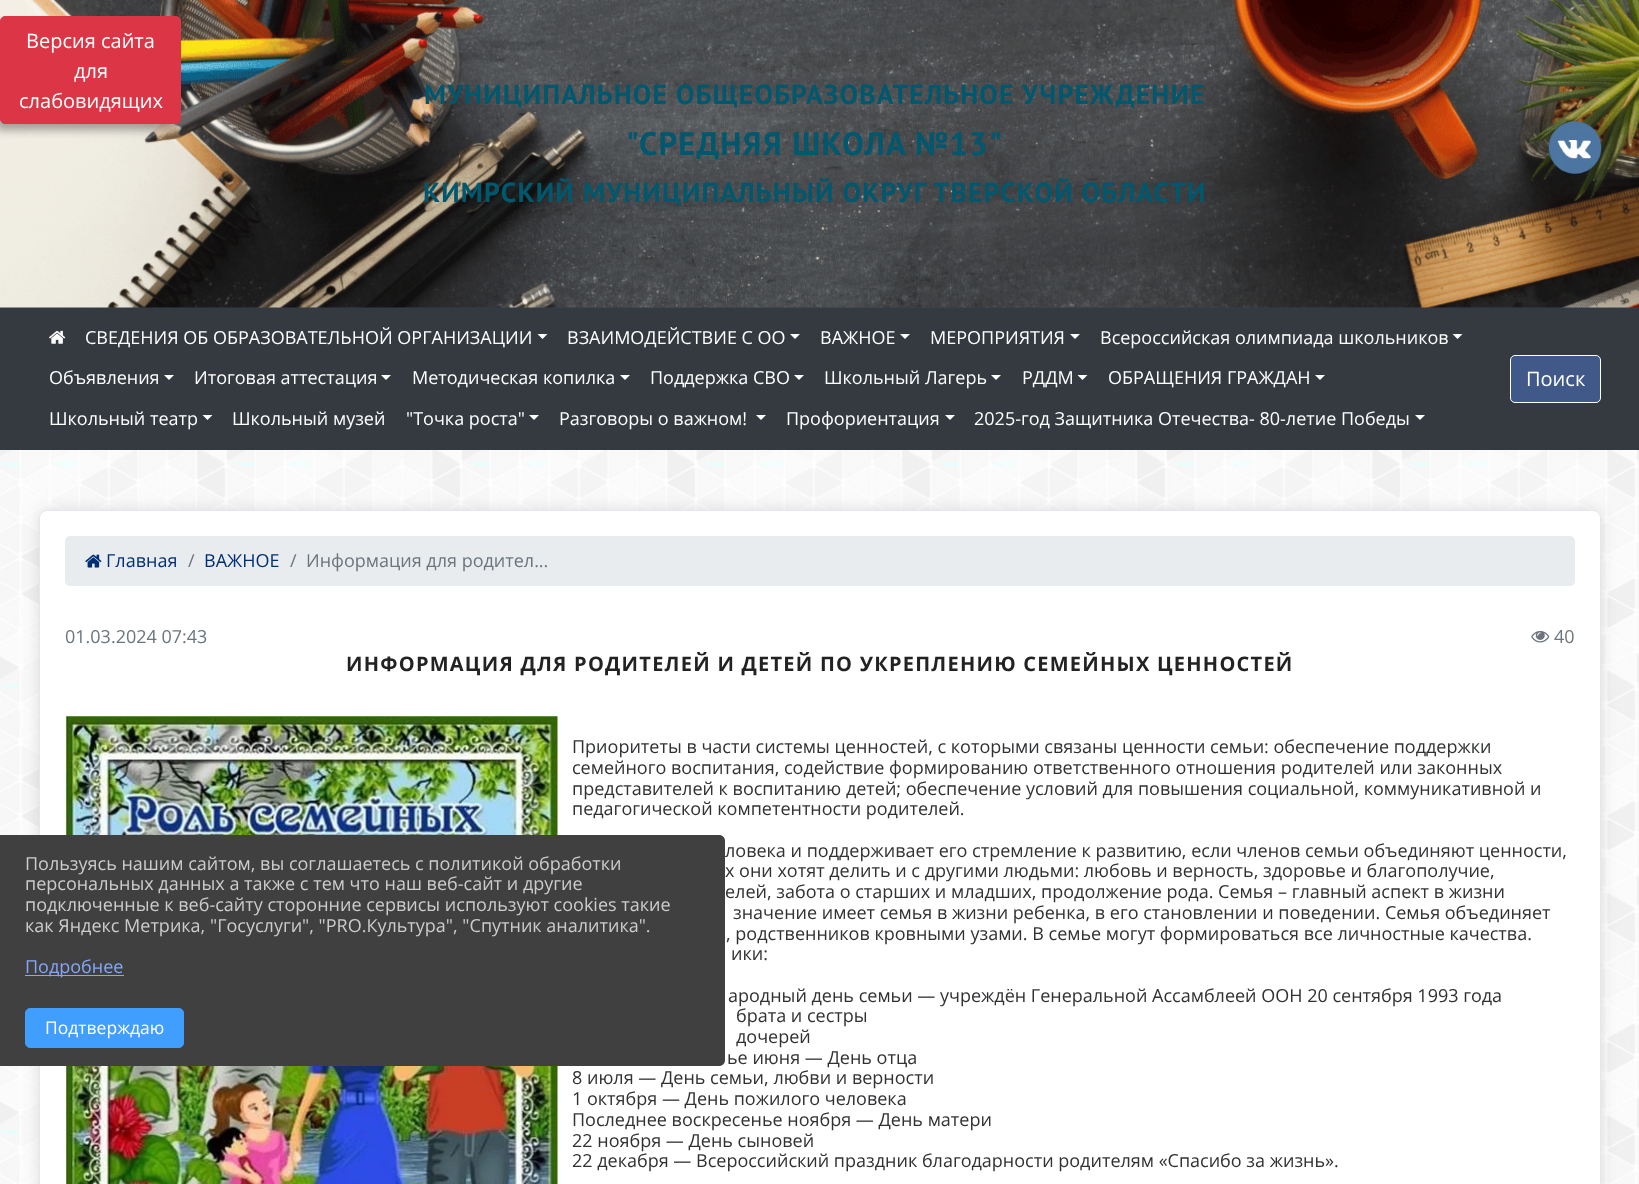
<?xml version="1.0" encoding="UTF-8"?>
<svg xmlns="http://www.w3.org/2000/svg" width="1639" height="1184">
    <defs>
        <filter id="blur1" x="-50%" y="-200%" width="200%" height="500%"><feGaussianBlur stdDeviation="5"/></filter>
        <filter id="blur2" x="-50%" y="-200%" width="200%" height="500%"><feGaussianBlur stdDeviation="7.5"/></filter>
    </defs>
    <rect width="100%" height="100%" fill="#FFFFFF"/>
    <image x="0" y="450" width="1639" height="734" href="img_01.png"/>
    <rect x="0" y="307" width="1639" height="1" fill="#304156"/>
    <image x="0" y="0" width="1639" height="308" href="img_02.png"/>
    <rect x="-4" y="25" width="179" height="105" rx="4" fill="#000000" fill-opacity="0.35" filter="url(#blur1)"/>
    <rect x="0.5" y="16.5" width="180" height="107" rx="4.5" fill="#DC3545" stroke="#DC3545"/>
    <text x="26" y="48" font-family="Open Sans" font-size="20" fill="#FFFFFF">Версия сайта</text>
    <text x="74" y="78" font-family="Open Sans" font-size="20" fill="#FFFFFF">для</text>
    <text x="19" y="108" font-family="Open Sans" font-size="20" fill="#FFFFFF">слабовидящих</text>
    <text x="424" y="104" font-family="PT Sans" font-size="27.5" font-weight="700" letter-spacing="1.25" fill="#00586F">МУНИЦИПАЛЬНОЕ ОБЩЕОБРАЗОВАТЕЛЬНОЕ УЧРЕЖДЕНИЕ</text>
    <text x="626" y="155" font-family="PT Sans" font-size="32.5" font-weight="700" letter-spacing="1.25" fill="#00586F">"СРЕДНЯЯ ШКОЛА №13"</text>
    <text x="423" y="202" font-family="PT Sans" font-size="27.5" font-weight="700" letter-spacing="1.25" fill="#00586F">КИМРСКИЙ МУНИЦИПАЛЬНЫЙ ОКРУГ ТВЕРСКОЙ ОБЛАСТИ</text>
    <image x="1548" y="121" width="54" height="53" href="img_03.png"/>
    <rect x="0" y="308" width="1639" height="142" fill="#343A40"/>
    <image x="49" y="330" width="17" height="14" href="img_04.png"/>
    <text x="85" y="344" font-family="Open Sans" font-size="18" fill="#FFFFFF">СВЕДЕНИЯ ОБ ОБРАЗОВАТЕЛЬНОЙ ОРГАНИЗАЦИИ</text>
    <path d="M 537.5 334 H 547.5 L 542.5 339 Z" fill="#FFFFFF"/>
    <text x="567" y="344" font-family="Open Sans" font-size="18" fill="#FFFFFF">ВЗАИМОДЕЙСТВИЕ С ОО</text>
    <path d="M 790 334 H 800 L 795 339 Z" fill="#FFFFFF"/>
    <text x="820" y="344" font-family="Open Sans" font-size="18" fill="#FFFFFF">ВАЖНОЕ</text>
    <path d="M 900 334 H 910 L 905 339 Z" fill="#FFFFFF"/>
    <text x="930" y="344" font-family="Open Sans" font-size="18" fill="#FFFFFF">МЕРОПРИЯТИЯ</text>
    <path d="M 1070 334 H 1080 L 1075 339 Z" fill="#FFFFFF"/>
    <text x="1100" y="344" font-family="Open Sans" font-size="18" fill="#FFFFFF">Всероссийская олимпиада школьников</text>
    <path d="M 1452.5 334 H 1462.5 L 1457.5 339 Z" fill="#FFFFFF"/>
    <text x="49" y="384" font-family="Open Sans" font-size="18" fill="#FFFFFF">Объявления</text>
    <path d="M 164 375 H 174 L 169 380 Z" fill="#FFFFFF"/>
    <text x="194" y="384" font-family="Open Sans" font-size="18" fill="#FFFFFF">Итоговая аттестация</text>
    <path d="M 381 375 H 391 L 386 380 Z" fill="#FFFFFF"/>
    <text x="412" y="384" font-family="Open Sans" font-size="18" fill="#FFFFFF">Методическая копилка</text>
    <path d="M 620 375 H 630 L 625 380 Z" fill="#FFFFFF"/>
    <text x="650" y="384" font-family="Open Sans" font-size="18" fill="#FFFFFF">Поддержка СВО</text>
    <path d="M 794 375 H 804 L 799 380 Z" fill="#FFFFFF"/>
    <text x="824" y="384" font-family="Open Sans" font-size="18" fill="#FFFFFF">Школьный Лагерь</text>
    <path d="M 991 375 H 1001 L 996 380 Z" fill="#FFFFFF"/>
    <text x="1022" y="384" font-family="Open Sans" font-size="18" fill="#FFFFFF">РДДМ</text>
    <path d="M 1077.5 375 H 1087.5 L 1082.5 380 Z" fill="#FFFFFF"/>
    <text x="1108" y="384" font-family="Open Sans" font-size="18" fill="#FFFFFF">ОБРАЩЕНИЯ ГРАЖДАН</text>
    <path d="M 1315 375 H 1325 L 1320 380 Z" fill="#FFFFFF"/>
    <text x="49" y="425" font-family="Open Sans" font-size="18" fill="#FFFFFF">Школьный театр</text>
    <path d="M 202.5 415 H 212.5 L 207.5 420 Z" fill="#FFFFFF"/>
    <text x="232" y="425" font-family="Open Sans" font-size="18" fill="#FFFFFF">Школьный музей</text>
    <text x="406" y="425" font-family="Open Sans" font-size="18" fill="#FFFFFF">"Точка роста"</text>
    <path d="M 529 415 H 539 L 534 420 Z" fill="#FFFFFF"/>
    <text x="559" y="425" font-family="Open Sans" font-size="18" fill="#FFFFFF">Разговоры о важном!</text>
    <path d="M 756 415 H 766 L 761 420 Z" fill="#FFFFFF"/>
    <text x="786" y="425" font-family="Open Sans" font-size="18" fill="#FFFFFF">Профориентация</text>
    <path d="M 945 415 H 955 L 950 420 Z" fill="#FFFFFF"/>
    <text x="974" y="425" font-family="Open Sans" font-size="18" fill="#FFFFFF">2025-год Защитника Отечества- 80-летие Победы</text>
    <path d="M 1415 415 H 1425 L 1420 420 Z" fill="#FFFFFF"/>
    <rect x="1510.5" y="355.5" width="90" height="47" rx="4.5" fill="#405988" stroke="#FFFFFF"/>
    <text x="1526" y="386" font-family="Open Sans" font-size="20" fill="#FFFFFF">Поиск</text>
    <rect x="39" y="510" width="1562" height="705" rx="8" fill="#000000" fill-opacity="0.12" filter="url(#blur2)"/>
    <rect x="39.5" y="510.5" width="1561" height="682" rx="7.5" fill="#FFFFFF" stroke="#E4E7ED"/>
    <rect x="65" y="536" width="1510" height="50" rx="5" fill="#E9ECEF"/>
    <image x="85" y="554" width="17" height="14" href="img_05.png"/>
    <text x="106" y="567" font-family="Open Sans" font-size="18" fill="#002F72">Главная</text>
    <text x="188" y="567" font-family="Open Sans" font-size="18" fill="#6C757D">/</text>
    <text x="204" y="567" font-family="Open Sans" font-size="18" fill="#002F72">ВАЖНОЕ</text>
    <text x="290" y="567" font-family="Open Sans" font-size="18" fill="#6C757D">/</text>
    <text x="306" y="567" font-family="Open Sans" font-size="18" fill="#6C757D">Информация для родител...</text>
    <text x="65" y="643" font-family="Open Sans" font-size="18" fill="#6C757D">01.03.2024 07:43</text>
    <image x="1531" y="630" width="19" height="13" href="img_06.png"/>
    <text x="1554" y="643" font-family="Open Sans" font-size="18" fill="#6C757D">40</text>
    <text x="346" y="671" font-family="Open Sans" font-size="20" font-weight="700" letter-spacing="1.25" fill="#222222">ИНФОРМАЦИЯ ДЛЯ РОДИТЕЛЕЙ И ДЕТЕЙ ПО УКРЕПЛЕНИЮ СЕМЕЙНЫХ ЦЕННОСТЕЙ</text>
    <image x="65" y="716" width="493" height="468" href="img_07.png"/>
    <text font-family="Open Sans" font-size="18" fill="#303133">
        <tspan x="572" y="753">Приоритеты в части системы ценностей, с которыми связаны ценности семьи: обеспечение поддержки</tspan>
        <tspan x="572" y="774">семейного воспитания, содействие формированию ответственного отношения родителей или законных</tspan>
        <tspan x="572" y="795">представителей к воспитанию детей; обеспечение условий для повышения социальной, коммуникативной и</tspan>
        <tspan x="572" y="815">педагогической компетентности родителей.</tspan>
    </text>
    <text font-family="Open Sans" font-size="18" fill="#303133">
        <tspan x="725" y="857">ловека и поддерживает его стремление к развитию, если членов семьи объединяют ценности,</tspan>
        <tspan x="725" y="877">х они хотят делить и с другими людьми: любовь и верность, здоровье и благополучие,</tspan>
        <tspan x="725" y="898">елей, забота о старших и младших, продолжение рода. Семья – главный аспект в жизни</tspan>
    </text>
    <text x="733" y="919" font-family="Open Sans" font-size="18" fill="#303133">значение имеет семья в жизни ребенка, в его становлении и поведении. Семья объединяет</text>
    <text x="726" y="940" font-family="Open Sans" font-size="18" fill="#303133">, родственников кровными узами. В семье могут формироваться все личностные качества.</text>
    <text x="731" y="960" font-family="Open Sans" font-size="18" fill="#303133">ики:</text>
    <text x="728" y="1002" font-family="Open Sans" font-size="18" fill="#303133">ародный день семьи — учреждён Генеральной Ассамблеей ООН 20 сентября 1993 года</text>
    <text font-family="Open Sans" font-size="18" fill="#303133">
        <tspan x="736" y="1022">брата и сестры</tspan>
        <tspan x="736" y="1043">дочерей</tspan>
    </text>
    <text x="727" y="1064" font-family="Open Sans" font-size="18" fill="#303133">ье июня — День отца</text>
    <text font-family="Open Sans" font-size="18" fill="#303133">
        <tspan x="572" y="1084">8 июля — День семьи, любви и верности</tspan>
        <tspan x="572" y="1105">1 октября — День пожилого человека</tspan>
        <tspan x="572" y="1126">Последнее воскресенье ноября — День матери</tspan>
        <tspan x="572" y="1147">22 ноября — День сыновей</tspan>
        <tspan x="572" y="1167">22 декабря — Всероссийский праздник благодарности родителям «Спасибо за жизнь».</tspan>
    </text>
    <path d="M 0 835 H 719 C 722.5 835 725 837.5 725 841 V 1060 C 725 1063.5 722.5 1066 719 1066 H 0 Z" fill="#404040"/>
    <text font-family="Open Sans" font-size="18" fill="#CCCCCC">
        <tspan x="25" y="870">Пользуясь нашим сайтом, вы соглашаетесь с политикой обработки</tspan>
        <tspan x="25" y="890">персональных данных а также с тем что наш веб-сайт и другие</tspan>
        <tspan x="25" y="911">подключенные к веб-сайту сторонние сервисы используют cookies такие</tspan>
        <tspan x="25" y="932">как Яндекс Метрика, "Госуслуги", "PRO.Культура", "Спутник аналитика".</tspan>
    </text>
    <rect x="25" y="975" width="99" height="1" fill="#85A6F9"/>
    <text x="25" y="973" font-family="Open Sans" font-size="18" fill="#85A6F9">Подробнее</text>
    <rect x="25.5" y="1008.5" width="158" height="39" rx="4.5" fill="#409EFF" stroke="#409EFF"/>
    <text x="45" y="1034" font-family="Open Sans" font-size="17.5" fill="#FFFFFF">Подтверждаю</text>
</svg>
